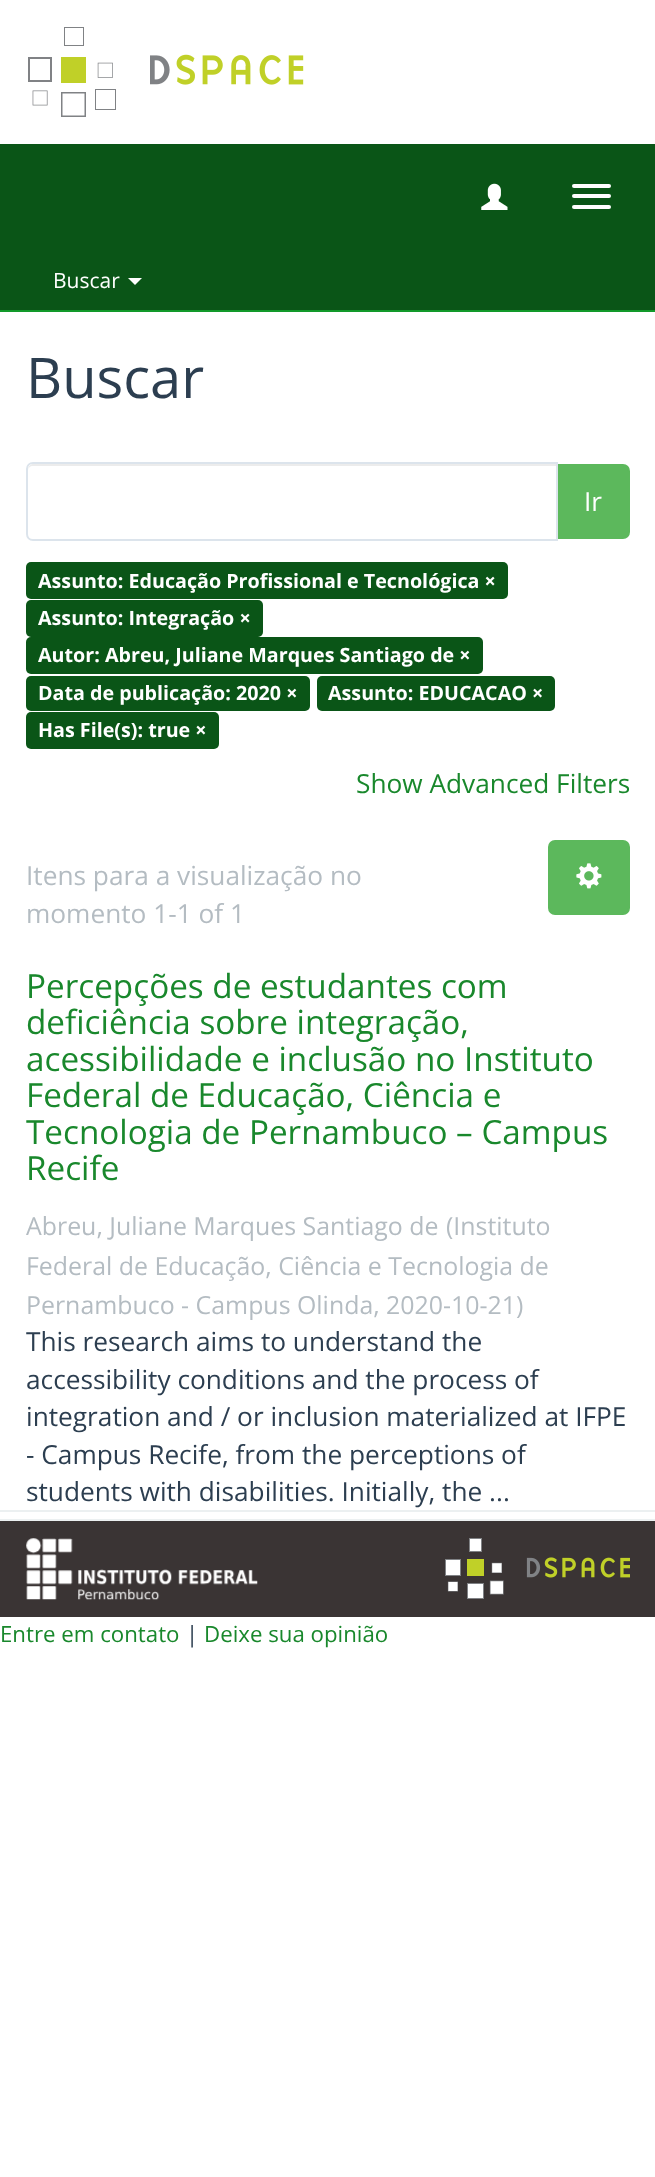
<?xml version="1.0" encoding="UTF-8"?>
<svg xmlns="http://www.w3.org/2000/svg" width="655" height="2177">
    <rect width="100%" height="100%" fill="#FFFFFF"/>
    <image x="28" y="27" width="276" height="90" href="img_01.png"/>
    <rect x="0" y="144" width="655" height="166" fill="#0A5517"/>
    <image x="481" y="183" width="27" height="27" href="img_02.png"/>
    <rect x="572" y="184" width="39" height="4" rx="2" fill="#FFFFFF"/>
    <rect x="572" y="194" width="39" height="4" rx="2" fill="#FFFFFF"/>
    <rect x="572" y="205" width="39" height="4" rx="2" fill="#FFFFFF"/>
    <rect x="0" y="310" width="655" height="2" fill="#12992A"/>
    <text x="53" y="288" font-family="Open Sans" font-size="21" fill="#FFFFFF">Buscar</text>
    <path d="M 128 278 H 142 L 135 285 Z" fill="#FFFFFF"/>
    <text x="26" y="398" font-family="Open Sans" font-size="56" fill="#2C3E50">Buscar</text>
    <path d="M 558 465 H 623 C 626.5 465 629 467.5 629 471 V 532 C 629 535.5 626.5 538 623 538 H 558 Z" fill="#5CB85C" stroke="#5CB85C" stroke-width="2"/>
    <path d="M 33 462 H 558 V 541 H 33 C 29 541 26 538 26 534 V 469 C 26 465 29 462 33 462 Z" fill="#FFFFFF"/>
    <path d="M 33 466 H 556 V 539 H 557 V 464 H 33 C 29 464 28 468 28 471 C 28 468 30 466 33 466 Z" fill="#ECECEC"/>
    <path d="M 33 463 H 557 V 540 H 33 C 29.5 540 27 537.5 27 534 V 469 C 27 465.5 29.5 463 33 463 Z" fill="none" stroke="#DCE4EC" stroke-width="2"/>
    <text x="584" y="511" font-family="Open Sans" font-size="26.25" fill="#FFFFFF">Ir</text>
    <rect x="26" y="562" width="482" height="37" rx="5" fill="#0A5517"/>
    <text x="38" y="588" font-family="Open Sans" font-size="19.7" font-weight="700" fill="#FFFFFF">Assunto: Educação Profissional e Tecnológica ×</text>
    <rect x="26" y="600" width="237" height="37" rx="5" fill="#0A5517"/>
    <text x="38" y="625" font-family="Open Sans" font-size="19.7" font-weight="700" fill="#FFFFFF">Assunto: Integração ×</text>
    <rect x="26" y="637" width="457" height="37" rx="5" fill="#0A5517"/>
    <text x="38" y="662" font-family="Open Sans" font-size="19.7" font-weight="700" fill="#FFFFFF">Autor: Abreu, Juliane Marques Santiago de ×</text>
    <rect x="26" y="676" width="284" height="35" rx="5" fill="#0A5517"/>
    <text x="38" y="700" font-family="Open Sans" font-size="19.7" font-weight="700" fill="#FFFFFF">Data de publicação: 2020 ×</text>
    <rect x="317" y="676" width="238" height="35" rx="5" fill="#0A5517"/>
    <text x="328" y="700" font-family="Open Sans" font-size="19.7" font-weight="700" fill="#FFFFFF">Assunto: EDUCACAO ×</text>
    <rect x="26" y="712" width="193" height="37" rx="5" fill="#0A5517"/>
    <text x="38" y="737" font-family="Open Sans" font-size="19.7" font-weight="700" fill="#FFFFFF">Has File(s): true ×</text>
    <text x="356" y="793" font-family="Open Sans" font-size="26.25" fill="#19882C">Show Advanced Filters</text>
    <text font-family="Open Sans" font-size="26.25" fill="#B4BCC2">
        <tspan x="26" y="885">Itens para a visualização no</tspan>
        <tspan x="26" y="923">momento 1-1 of 1</tspan>
    </text>
    <rect x="549" y="841" width="80" height="73" rx="6" fill="#5CB85C" stroke="#5CB85C" stroke-width="2"/>
    <image x="576" y="863" width="26" height="26" href="img_03.png"/>
    <text font-family="Open Sans" font-size="33.25" fill="#19882C">
        <tspan x="26" y="998">Percepções de estudantes com</tspan>
        <tspan x="26" y="1034">deficiência sobre integração,</tspan>
        <tspan x="26" y="1071">acessibilidade e inclusão no Instituto</tspan>
        <tspan x="26" y="1107">Federal de Educação, Ciência e</tspan>
        <tspan x="26" y="1144">Tecnologia de Pernambuco – Campus</tspan>
        <tspan x="26" y="1180">Recife</tspan>
    </text>
    <text x="26" y="1235" font-family="Open Sans" font-size="24.9" fill="#B4BCC2">Abreu, Juliane Marques Santiago de</text>
    <text x="446" y="1235" font-family="Open Sans" font-size="24.9" fill="#B4BCC2">(Instituto</text>
    <text font-family="Open Sans" font-size="24.9" fill="#B4BCC2">
        <tspan x="26" y="1275">Federal de Educação, Ciência e Tecnologia de</tspan>
        <tspan x="26" y="1314">Pernambuco - Campus Olinda, 2020-10-21)</tspan>
    </text>
    <text font-family="Open Sans" font-size="26.25" fill="#2C3E50">
        <tspan x="26" y="1351">This research aims to understand the</tspan>
        <tspan x="26" y="1389">accessibility conditions and the process of</tspan>
        <tspan x="26" y="1426">integration and / or inclusion materialized at IFPE</tspan>
        <tspan x="26" y="1464">- Campus Recife, from the perceptions of</tspan>
        <tspan x="26" y="1501">students with disabilities. Initially, the ...</tspan>
    </text>
    <rect x="0" y="1521" width="655" height="96" fill="#3A3434"/>
    <rect x="0" y="1519" width="655" height="2" fill="#ECF0F1"/>
    <image x="26" y="1538" width="232" height="62" href="img_04.png"/>
    <image x="445" y="1538" width="185" height="61" href="img_05.png"/>
    <rect x="0" y="1510" width="655" height="2" fill="#ECF0F1"/>
    <text x="0" y="1642" font-family="Open Sans" font-size="22.25" fill="#19882C">Entre em contato</text>
    <text x="186" y="1642" font-family="Open Sans" font-size="22.25" fill="#2C3E50">|</text>
    <text x="204" y="1642" font-family="Open Sans" font-size="22.25" fill="#19882C">Deixe sua opinião</text>
</svg>
